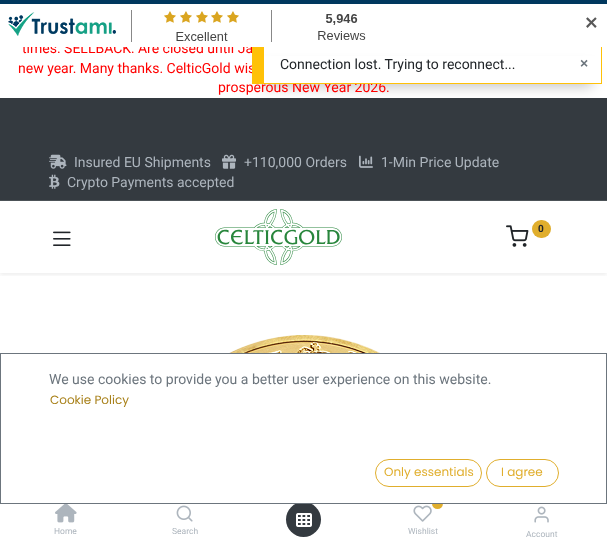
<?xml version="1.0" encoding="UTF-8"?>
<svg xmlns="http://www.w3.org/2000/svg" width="607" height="549">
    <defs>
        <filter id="blur1" x="-50%" y="-200%" width="200%" height="500%"><feGaussianBlur stdDeviation="7"/></filter>
        <clipPath id="clip1"><rect x="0" y="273" width="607" height="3"/></clipPath>
        <filter id="blur2" x="-50%" y="-200%" width="200%" height="500%"><feGaussianBlur stdDeviation="2"/></filter>
    </defs>
    <rect width="100%" height="100%" fill="#FFFFFF"/>
    <text x="22" y="53" font-family="Roboto" font-size="14" fill="#FF0000">times. SELLBACK: Are closed until Ja</text>
    <rect x="0" y="98" width="607" height="102" fill="#343A40"/>
    <rect x="262" y="68" width="330" height="18" fill="#000000" fill-opacity="0.25" filter="url(#blur1)"/>
    <rect x="601" y="46" width="1" height="38" fill="#FFC107"/>
    <image x="0" y="0" width="607" height="47" href="img_01.png"/>
    <text x="584" y="29" font-family="DejaVu Sans" font-size="17" font-weight="700" fill="#595959">✕</text>
    <text x="18" y="73" font-family="Roboto" font-size="14" fill="#FF0000">new year. Many thanks. CelticGold wis</text>
    <text x="218" y="92" font-family="Roboto" font-size="14" fill="#FF0000">prosperous New Year 2026.</text>
    <rect x="0" y="200" width="607" height="1" fill="#4C5257"/>
    <image x="49" y="154" width="18" height="15" href="img_02.png"/>
    <text x="74" y="167" font-family="Roboto" font-size="14" fill="#ADB5BD">Insured EU Shipments</text>
    <image x="222" y="154" width="14" height="15" href="img_03.png"/>
    <text x="244" y="167" font-family="Roboto" font-size="14" fill="#ADB5BD">+110,000 Orders</text>
    <image x="359" y="155" width="14" height="13" href="img_04.png"/>
    <text x="381" y="167" font-family="Roboto" font-size="14" fill="#ADB5BD">1-Min Price Update</text>
    <image x="49" y="174" width="11" height="15" href="img_05.png"/>
    <text x="67" y="187" font-family="Roboto" font-size="14" fill="#ADB5BD">Crypto Payments accepted</text>
    <g clip-path="url(#clip1)">
        <rect x="0" y="203" width="607" height="72" fill="#000000" fill-opacity="0.07" filter="url(#blur2)"/>
    </g>
    <image x="215" y="209" width="127" height="56" href="img_06.png"/>
    <image x="506" y="225" width="23" height="22" href="img_07.png"/>
    <rect x="532" y="220" width="19" height="18" rx="9" fill="#E0AE2D"/>
    <text x="538" y="232" font-family="Roboto" font-size="10" font-weight="700" fill="#212529">0</text>
    <image x="53" y="231" width="18" height="15" href="img_08.png"/>
    <image x="138" y="335" width="334" height="18" href="img_09.png"/>
    <circle cx="303.5" cy="519.5" r="17.5" fill="#343A40"/>
    <circle cx="437.5" cy="503.5" r="5.5" fill="#E0AE2D"/>
    <rect x="0.5" y="353.5" width="606" height="150" fill="none" stroke="#6C757D"/>
    <rect x="297" y="498" width="146" height="5" fill="#FFFFFF"/>
    <text x="49" y="384" font-family="Roboto" font-size="14" fill="#6C757D">We use cookies to provide you a better user experience on this website.</text>
    <text x="50" y="404" font-family="Poppins" font-size="12" fill="#A88019">Cookie Policy</text>
    <rect x="375.5" y="459.5" width="106" height="27" rx="13.5" fill="none" stroke="#E0AE2D"/>
    <text x="384" y="476" font-family="Poppins" font-size="12" fill="#E0AE2D">Only essentials</text>
    <rect x="486.5" y="459.5" width="72" height="27" rx="13.5" fill="none" stroke="#E0AE2D"/>
    <text x="501" y="476" font-family="Poppins" font-size="12" fill="#E0AE2D">I agree</text>
    <image x="55" y="504" width="22" height="19" href="img_10.png"/>
    <text x="54" y="534" font-family="Roboto" font-size="8.5" fill="#ADB5BD">Home</text>
    <image x="176" y="505" width="17" height="17" href="img_11.png"/>
    <text x="172" y="534" font-family="Roboto" font-size="8.5" fill="#ADB5BD">Search</text>
    <image x="296" y="513" width="16" height="14" href="img_12.png"/>
    <image x="413" y="505" width="19" height="17" href="img_13.png"/>
    <text x="408" y="534" font-family="Roboto" font-size="8.5" fill="#ADB5BD">Wishlist</text>
    <image x="534" y="506" width="15" height="17" href="img_14.png"/>
    <text x="526" y="537" font-family="Roboto" font-size="8.5" fill="#ADB5BD">Account</text>
    <rect x="264" y="56" width="337" height="27" fill="#FFFFFF"/>
    <rect x="264" y="83" width="338" height="1" fill="#FFC107"/>
    <rect x="252" y="47" width="12" height="37" fill="#FFC107"/>
    <text x="280" y="69" font-family="Roboto" font-size="14" fill="#212529">Connection lost. Trying to reconnect...</text>
    <text x="580" y="68" font-family="Liberation Sans" font-size="14" font-weight="700" fill="#6C757D">×</text>
</svg>
